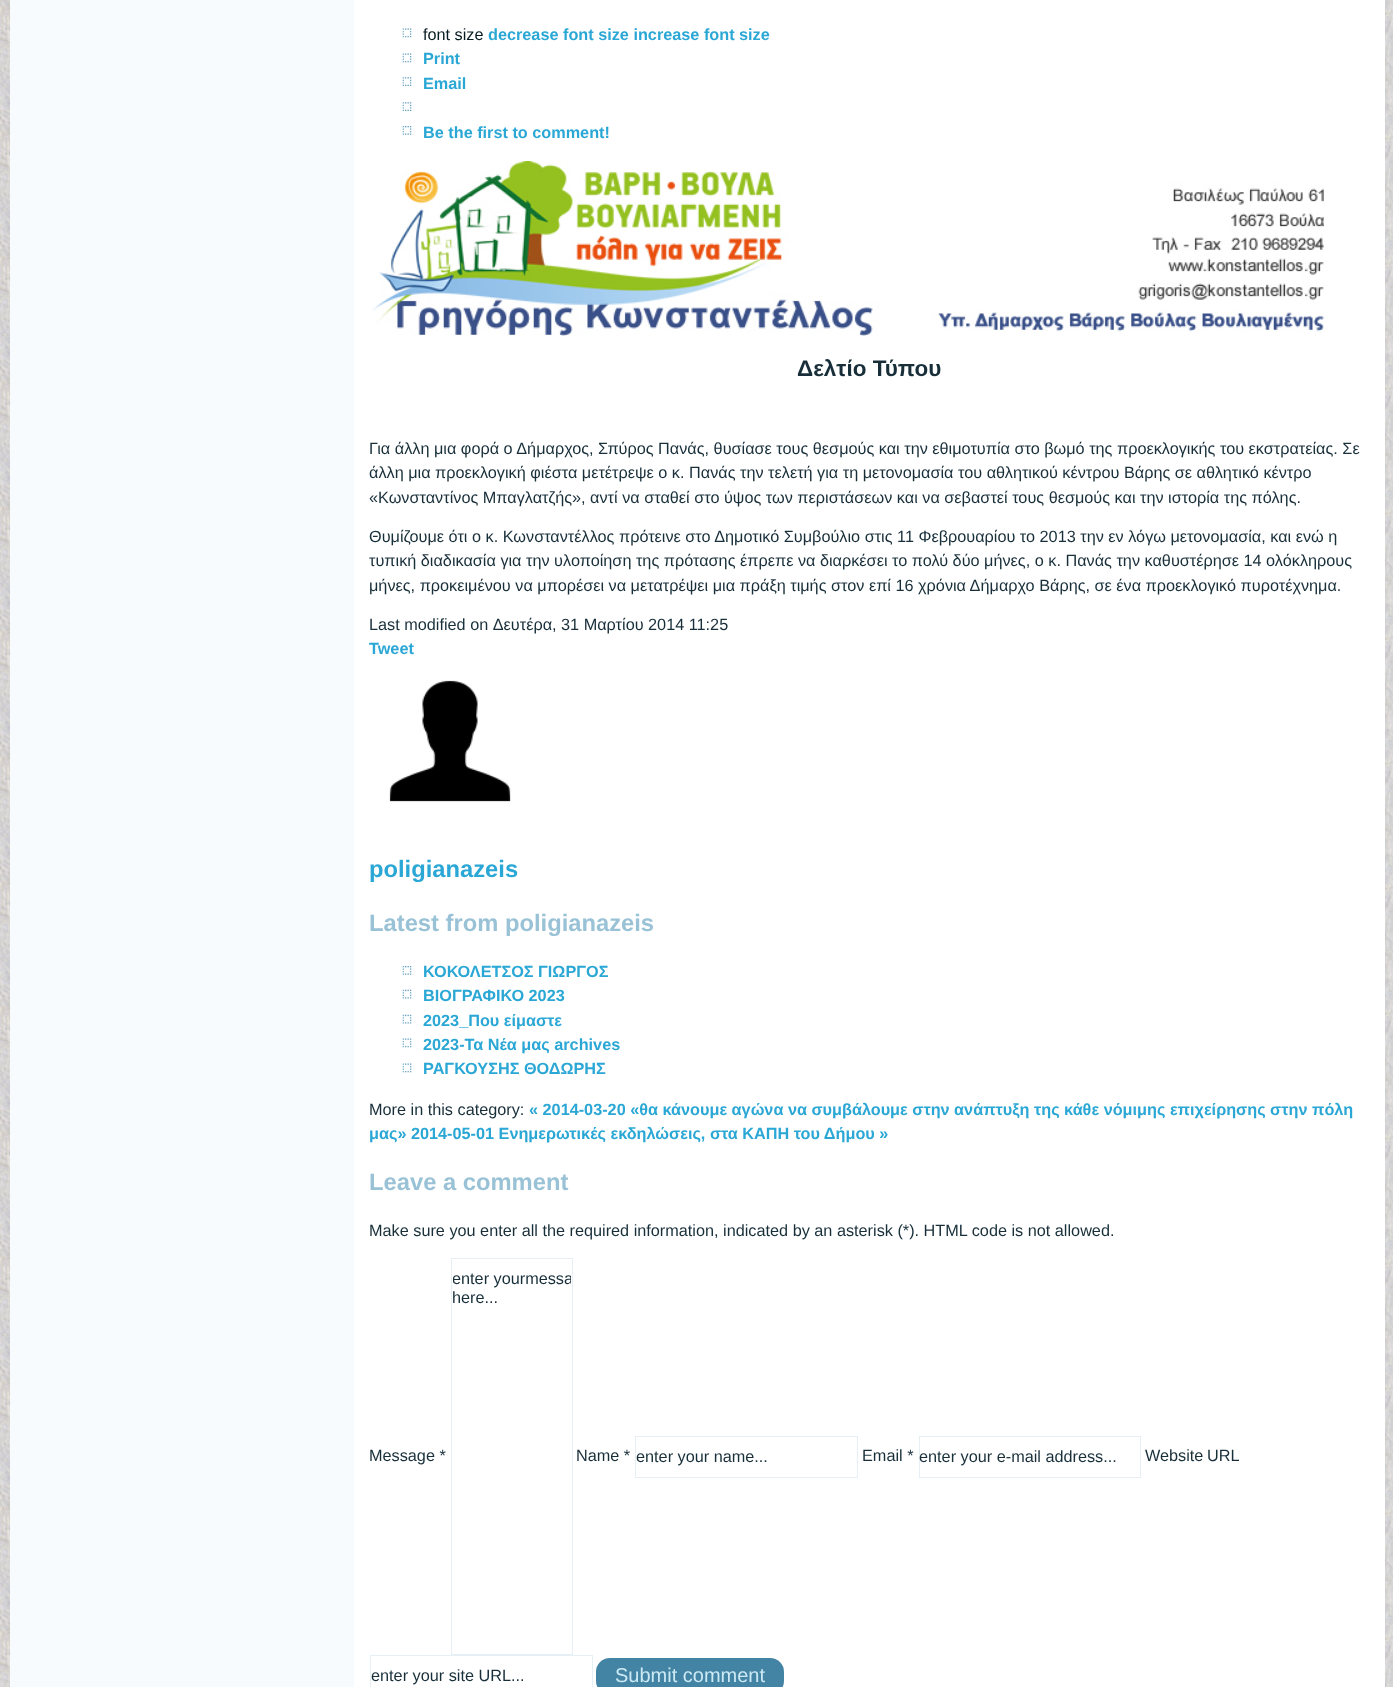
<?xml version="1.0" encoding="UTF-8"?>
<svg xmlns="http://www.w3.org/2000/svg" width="1393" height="1687">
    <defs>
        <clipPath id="clip1"><rect x="453" y="1259" width="118" height="395"/></clipPath>
    </defs>
    <rect width="100%" height="100%" fill="#FFFFFF"/>
    <image x="0" y="0" width="1393" height="1687" href="img_01.png"/>
    <rect x="354" y="0" width="1031" height="1687" fill="#FFFFFF"/>
    <rect x="10" y="0" width="344" height="1687" fill="#F7FBFD"/>
    <image x="402" y="28" width="10" height="10" href="img_02.png"/>
    <text x="423" y="40" font-family="Liberation Sans" font-size="16.25" fill="#071B22">font size</text>
    <text x="488" y="40" font-family="Liberation Sans" font-size="16.25" font-weight="700" fill="#2AA7D5">decrease font size increase font size</text>
    <image x="402" y="53" width="10" height="10" href="img_02.png"/>
    <text x="423" y="64" font-family="Liberation Sans" font-size="16.25" font-weight="700" fill="#2AA7D5">Print</text>
    <image x="402" y="77" width="10" height="9" href="img_03.png"/>
    <text x="423" y="89" font-family="Liberation Sans" font-size="16.25" font-weight="700" fill="#2AA7D5">Email</text>
    <image x="402" y="102" width="10" height="9" href="img_03.png"/>
    <image x="402" y="126" width="10" height="9" href="img_04.png"/>
    <text x="423" y="138" font-family="Liberation Sans" font-size="16.25" font-weight="700" fill="#2AA7D5">Be the first to comment!</text>
    <image x="372" y="161" width="952" height="175" href="img_05.png"/>
    <text x="797" y="376" font-family="Liberation Sans" font-size="22.5" font-weight="700" fill="#182F3A">Δελτίο Τύπου</text>
    <text font-family="Liberation Sans" font-size="16.25" fill="#182F3A">
        <tspan x="369" y="454">Για άλλη μια φορά ο Δήμαρχος, Σπύρος Πανάς, θυσίασε τους θεσμούς και την εθιμοτυπία στο βωμό της προεκλογικής του εκστρατείας. Σε</tspan>
        <tspan x="369" y="478">άλλη μια προεκλογική φιέστα μετέτρεψε ο κ. Πανάς την τελετή για τη μετονομασία του αθλητικού κέντρου Βάρης σε αθλητικό κέντρο</tspan>
        <tspan x="369" y="503">«Κωνσταντίνος Μπαγλατζής», αντί να σταθεί στο ύψος των περιστάσεων και να σεβαστεί τους θεσμούς και την ιστορία της πόλης.</tspan>
    </text>
    <text font-family="Liberation Sans" font-size="16.25" fill="#182F3A">
        <tspan x="369" y="542">Θυμίζουμε ότι ο κ. Κωνσταντέλλος πρότεινε στο Δημοτικό Συμβούλιο στις 11 Φεβρουαρίου το 2013 την εν λόγω μετονομασία, και ενώ η</tspan>
        <tspan x="369" y="566">τυπική διαδικασία για την υλοποίηση της πρότασης έπρεπε να διαρκέσει το πολύ δύο μήνες, ο κ. Πανάς την καθυστέρησε 14 ολόκληρους</tspan>
        <tspan x="369" y="591">μήνες, προκειμένου να μπορέσει να μετατρέψει μια πράξη τιμής στον επί 16 χρόνια Δήμαρχο Βάρης, σε ένα προεκλογικό πυροτέχνημα.</tspan>
    </text>
    <text x="369" y="630" font-family="Liberation Sans" font-size="16.25" fill="#182F3A">Last modified on Δευτέρα, 31 Μαρτίου 2014 11:25</text>
    <text x="369" y="654" font-family="Liberation Sans" font-size="16.25" font-weight="700" fill="#2AA7D5">Tweet</text>
    <image x="389" y="680" width="122" height="122" href="img_06.png"/>
    <text x="369" y="877" font-family="Liberation Sans" font-size="23.75" font-weight="700" fill="#2AA7D5">poligianazeis</text>
    <text x="369" y="931" font-family="Liberation Sans" font-size="23.75" font-weight="700" fill="#9AC2D6">Latest from poligianazeis</text>
    <image x="402" y="966" width="10" height="9" href="img_04.png"/>
    <text x="423" y="977" font-family="Liberation Sans" font-size="16.25" font-weight="700" fill="#2AA7D5">ΚΟΚΟΛΕΤΣΟΣ ΓΙΩΡΓΟΣ</text>
    <image x="402" y="989" width="10" height="10" href="img_07.png"/>
    <text x="423" y="1001" font-family="Liberation Sans" font-size="16.25" font-weight="700" fill="#2AA7D5">ΒΙΟΓΡΑΦΙΚΟ 2023</text>
    <image x="402" y="1014" width="10" height="10" href="img_07.png"/>
    <text x="423" y="1026" font-family="Liberation Sans" font-size="16.25" font-weight="700" fill="#2AA7D5">2023_Που είμαστε</text>
    <image x="402" y="1038" width="10" height="10" href="img_02.png"/>
    <text x="423" y="1050" font-family="Liberation Sans" font-size="16.25" font-weight="700" fill="#2AA7D5">2023-Τα Νέα μας archives</text>
    <image x="402" y="1063" width="10" height="10" href="img_02.png"/>
    <text x="423" y="1074" font-family="Liberation Sans" font-size="16.25" font-weight="700" fill="#2AA7D5">ΡΑΓΚΟΥΣΗΣ ΘΟΔΩΡΗΣ</text>
    <text x="369" y="1115" font-family="Liberation Sans" font-size="16.25" fill="#182F3A">More in this category:</text>
    <text x="529" y="1115" font-family="Liberation Sans" font-size="16.25" font-weight="700" fill="#2AA7D5">« 2014-03-20 «θα κάνουμε αγώνα να συμβάλουμε στην ανάπτυξη της κάθε νόμιμης επιχείρησης στην πόλη</text>
    <text x="369" y="1139" font-family="Liberation Sans" font-size="16.25" font-weight="700" fill="#2AA7D5">μας» 2014-05-01 Ενημερωτικές εκδηλώσεις, στα ΚΑΠΗ του Δήμου »</text>
    <text x="369" y="1190" font-family="Liberation Sans" font-size="23.75" font-weight="700" fill="#9AC2D6">Leave a comment</text>
    <text x="369" y="1236" font-family="Liberation Sans" font-size="16.25" fill="#182F3A">Make sure you enter all the required information, indicated by an asterisk (*). HTML code is not allowed.</text>
    <rect x="451.5" y="1258.5" width="121" height="396" fill="none" stroke="#E5EFF4"/>
    <g clip-path="url(#clip1)">
        <text x="452" y="1284" font-family="Liberation Sans" font-size="16.25" fill="#182F3A">enter yourmessa</text>
    </g>
    <text x="452" y="1303" font-family="Liberation Sans" font-size="16.25" fill="#182F3A">here...</text>
    <text x="369" y="1461" font-family="Liberation Sans" font-size="16.25" fill="#182F3A">Message *</text>
    <text x="576" y="1461" font-family="Liberation Sans" font-size="16.25" fill="#182F3A">Name *</text>
    <rect x="635.5" y="1436.5" width="222" height="41" fill="none" stroke="#E5EFF4"/>
    <text x="636" y="1462" font-family="Liberation Sans" font-size="16.25" fill="#182F3A">enter your name...</text>
    <text x="862" y="1461" font-family="Liberation Sans" font-size="16.25" fill="#182F3A">Email *</text>
    <rect x="919.5" y="1436.5" width="221" height="41" fill="none" stroke="#E5EFF4"/>
    <text x="919" y="1462" font-family="Liberation Sans" font-size="16.25" fill="#182F3A">enter your e-mail address...</text>
    <text x="1145" y="1461" word-spacing="-1" font-family="Liberation Sans" font-size="16.25" fill="#182F3A">Website URL</text>
    <rect x="370.5" y="1655.5" width="222" height="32" fill="none" stroke="#E5EFF4"/>
    <text x="371" y="1681" font-family="Liberation Sans" font-size="16.25" fill="#182F3A">enter your site URL...</text>
    <rect x="596" y="1658" width="188" height="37" rx="14" fill="#4383A3"/>
    <text x="615" y="1682" font-family="Liberation Sans" font-size="20" fill="#CCEAF5">Submit comment</text>
</svg>
